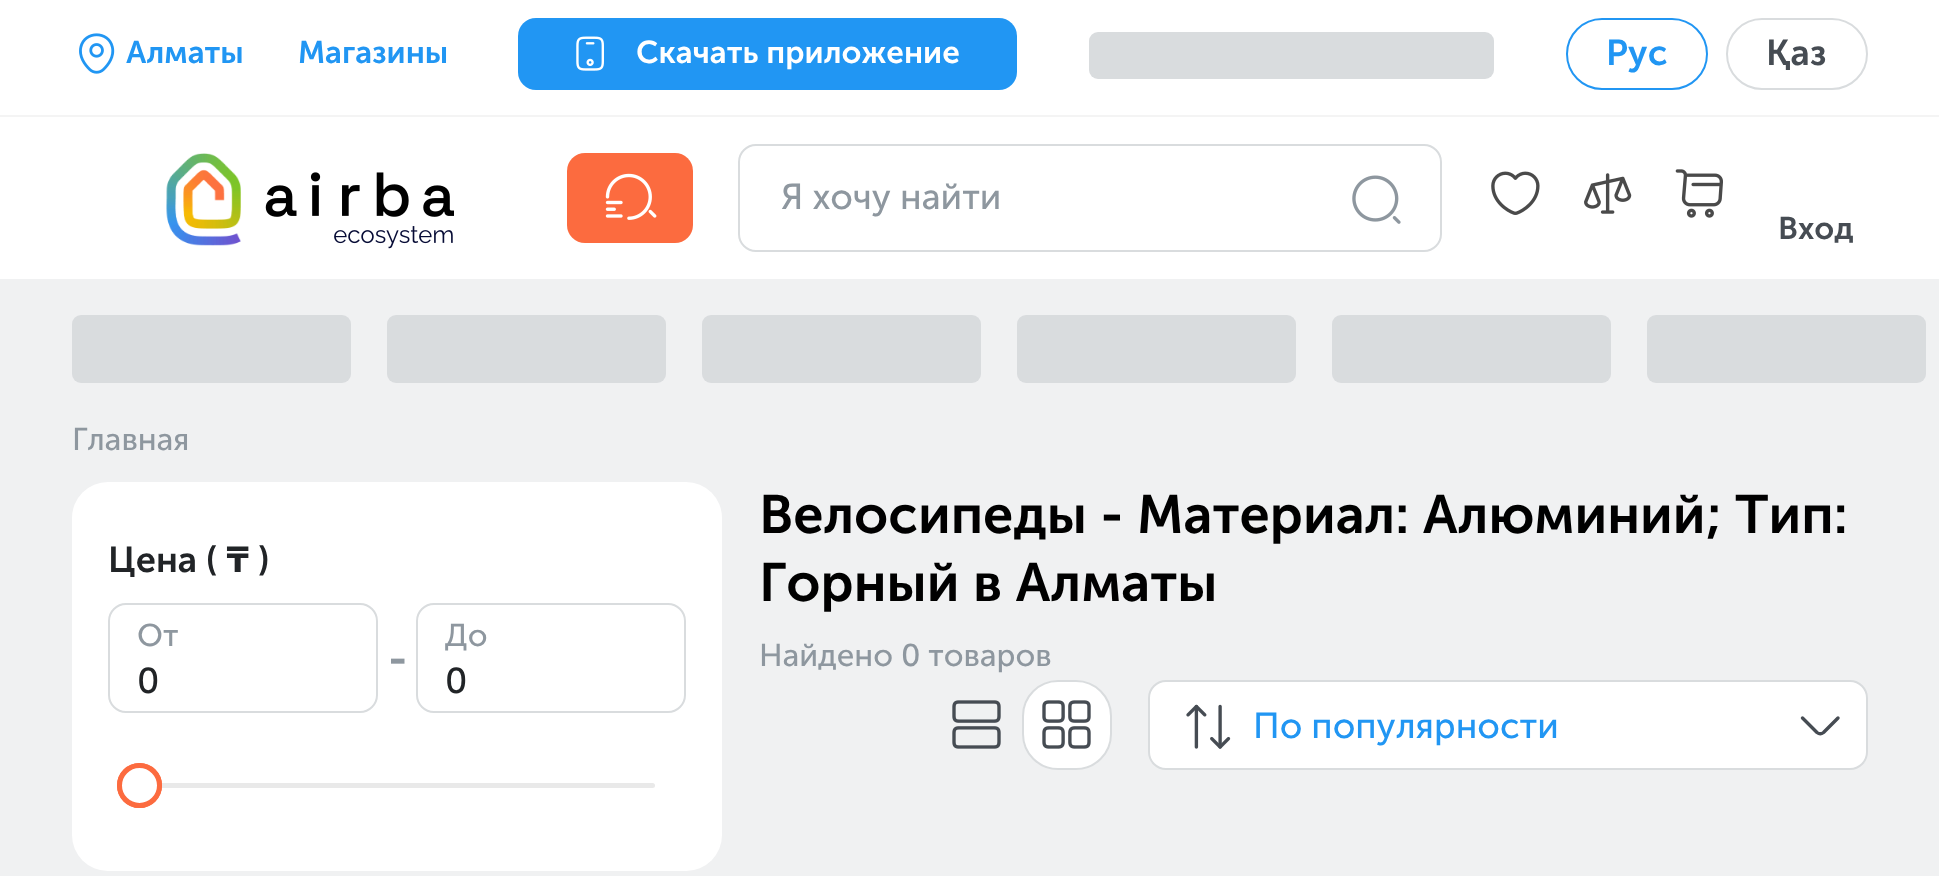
<?xml version="1.0" encoding="UTF-8"?>
<svg xmlns="http://www.w3.org/2000/svg" width="1939" height="876">
    <rect width="100%" height="100%" fill="#F0F1F2"/>
    <rect x="0" y="0" width="1939" height="115" fill="#FFFFFF"/>
    <rect x="0" y="115" width="1939" height="2" fill="#F4F4F4"/>
    <image x="79" y="33" width="36" height="41" href="img_01.png"/>
    <text x="126" y="63" font-family="'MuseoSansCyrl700'" font-size="31.5" font-weight="700" fill="#2196F3">Алматы</text>
    <text x="298" y="63" font-family="'MuseoSansCyrl700'" font-size="31.5" font-weight="700" fill="#2196F3">Магазины</text>
    <rect x="518" y="18" width="499" height="72" rx="18" fill="#2196F3"/>
    <image x="576" y="36" width="28" height="35" href="img_02.png"/>
    <text x="636" y="63" font-family="'MuseoSansCyrl700'" font-size="31.5" font-weight="700" fill="#FFFFFF">Скачать приложение</text>
    <rect x="1089" y="32" width="405" height="47" rx="9" fill="#D9DCDE"/>
    <rect x="1567" y="19" width="140" height="70" rx="35" fill="none" stroke="#2196F3" stroke-width="2"/>
    <text x="1606" y="65" font-family="'MuseoSansCyrl700'" font-size="36" font-weight="700" fill="#2196F3">Рус</text>
    <rect x="1727" y="19" width="140" height="70" rx="35" fill="none" stroke="#D9DCDE" stroke-width="2"/>
    <text x="1766" y="65" font-family="'MuseoSansCyrl700'" font-size="36" font-weight="700" fill="#464C53">Қаз</text>
    <rect x="0" y="117" width="1939" height="162" fill="#FFFFFF"/>
    <image x="166" y="153" width="75" height="93" href="img_03.png"/>
    <image x="265" y="185" width="32" height="32" href="img_04.png"/>
    <image x="310" y="172" width="11" height="44" href="img_05.png"/>
    <image x="342" y="185" width="18" height="31" href="img_06.png"/>
    <image x="376" y="172" width="33" height="45" href="img_07.png"/>
    <image x="423" y="185" width="31" height="32" href="img_08.png"/>
    <image x="334" y="226" width="119" height="23" href="img_09.png"/>
    <rect x="567" y="153" width="126" height="90" rx="18" fill="#FC6B3F"/>
    <image x="605" y="173" width="52" height="47" href="img_10.png"/>
    <rect x="739" y="145" width="702" height="106" rx="17" fill="none" stroke="#D9DCDE" stroke-width="2"/>
    <text x="781" y="209" font-family="'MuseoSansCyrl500'" font-size="36" fill="#8E979F">Я хочу найти</text>
    <image x="1352" y="175" width="49" height="49" href="img_11.png"/>
    <image x="1491" y="171" width="49" height="44" href="img_12.png"/>
    <image x="1584" y="173" width="48" height="41" href="img_13.png"/>
    <image x="1675" y="169" width="48" height="49" href="img_14.png"/>
    <text x="1778" y="239" font-family="'MuseoSansCyrl700'" font-size="31.5" font-weight="700" fill="#464C53">Вход</text>
    <rect x="72" y="315" width="279" height="68" rx="9" fill="#D9DCDE"/>
    <rect x="387" y="315" width="279" height="68" rx="9" fill="#D9DCDE"/>
    <rect x="702" y="315" width="279" height="68" rx="9" fill="#D9DCDE"/>
    <rect x="1017" y="315" width="279" height="68" rx="9" fill="#D9DCDE"/>
    <rect x="1332" y="315" width="279" height="68" rx="9" fill="#D9DCDE"/>
    <rect x="1647" y="315" width="279" height="68" rx="9" fill="#D9DCDE"/>
    <text x="72" y="450" font-family="'MuseoSansCyrl500'" font-size="31.5" fill="#8E979F">Главная</text>
    <rect x="72" y="482" width="650" height="389" rx="36" fill="#FFFFFF"/>
    <text x="108" y="572" font-family="'MuseoSansCyrl700'" font-size="36" font-weight="700" fill="#212427">Цена ( ₸ )</text>
    <rect x="109" y="604" width="268" height="108" rx="17" fill="none" stroke="#D9DCDE" stroke-width="2"/>
    <text x="137" y="646" font-family="'MuseoSansCyrl500'" font-size="31.5" fill="#8E979F">От</text>
    <text x="137" y="693" font-family="'MuseoSansCyrl500'" font-size="36" fill="#212427">0</text>
    <text x="388" y="674" font-family="'MuseoSansCyrl700'" font-size="45" font-weight="700" fill="#8E979F">-</text>
    <rect x="417" y="604" width="268" height="108" rx="17" fill="none" stroke="#D9DCDE" stroke-width="2"/>
    <text x="445" y="646" font-family="'MuseoSansCyrl500'" font-size="31.5" fill="#8E979F">До</text>
    <text x="445" y="693" font-family="'MuseoSansCyrl500'" font-size="36" fill="#212427">0</text>
    <rect x="140" y="783" width="515" height="5" rx="2.5" fill="#E9E9E9"/>
    <circle cx="139.5" cy="785.5" r="20" fill="none" stroke="#FC6B3F" stroke-width="5"/>
    <circle cx="139.5" cy="785.5" r="20" fill="#FFFFFF" stroke="#FC6B3F" stroke-width="5"/>
    <text font-family="'MuseoSansCyrl700'" font-size="54" font-weight="700" fill="#000000">
        <tspan x="759" y="533">Велосипеды - Материал: Алюминий; Тип:</tspan>
        <tspan x="759" y="601">Горный в Алматы</tspan>
    </text>
    <text x="759" y="666" font-family="'MuseoSansCyrl500'" font-size="31.5" fill="#8E979F">Найдено 0 товаров</text>
    <image x="952" y="700" width="49" height="49" href="img_15.png"/>
    <rect x="1023" y="681" width="88" height="88" rx="35" fill="#FFFFFF" stroke="#D9DCDE" stroke-width="2"/>
    <image x="1042" y="700" width="49" height="49" href="img_16.png"/>
    <rect x="1149" y="681" width="718" height="88" rx="17" fill="#FFFFFF" stroke="#D9DCDE" stroke-width="2"/>
    <image x="1186" y="704" width="45" height="45" href="img_17.png"/>
    <text x="1253" y="738" font-family="'MuseoSansCyrl500'" font-size="36" fill="#2196F3">По популярности</text>
    <path d="M 1838 718 L 1823.5 732.5 C 1821.5 734 1819 734 1817 732.5 L 1802.5 718" fill="none" stroke="#464C53" stroke-width="3.4" stroke-linecap="round" stroke-linejoin="round"/>
</svg>
